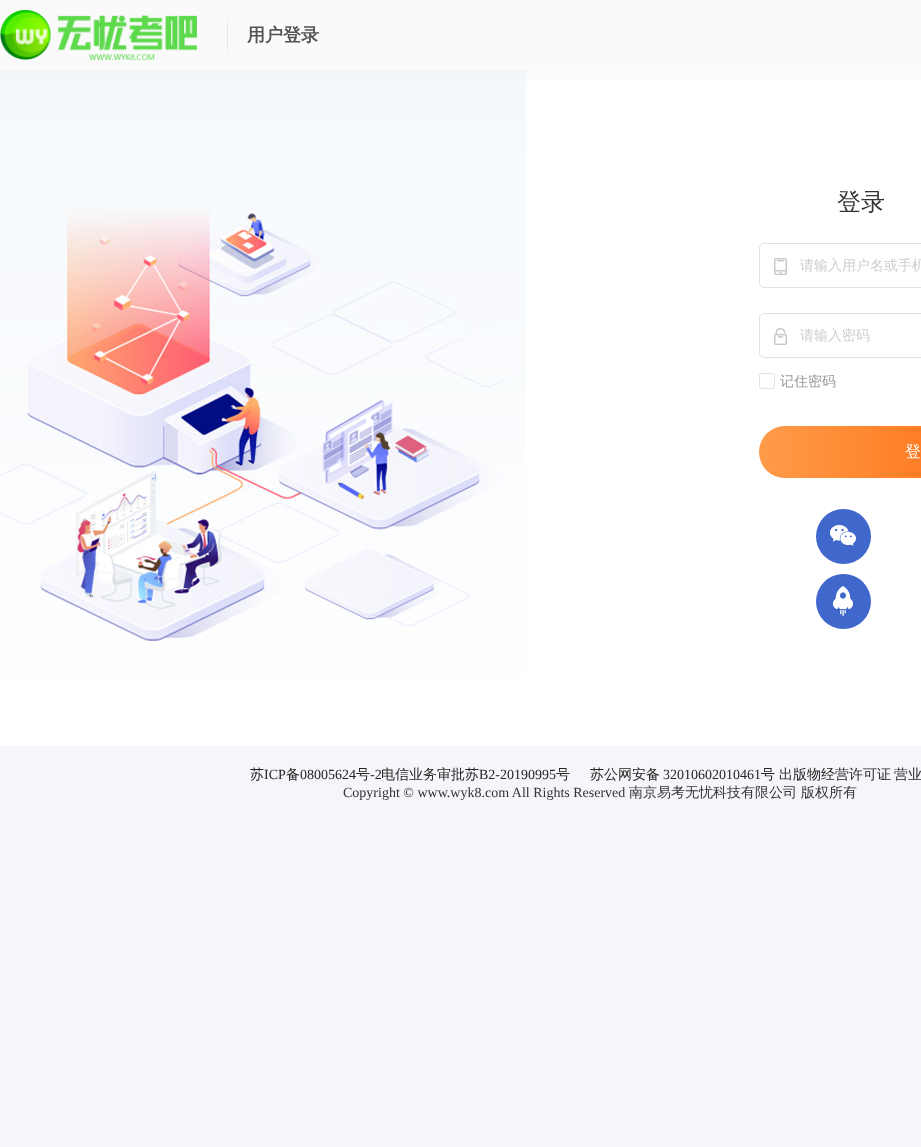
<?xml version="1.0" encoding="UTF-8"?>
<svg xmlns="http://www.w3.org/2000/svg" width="921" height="1147">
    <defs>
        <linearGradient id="g1" gradientUnits="userSpaceOnUse" x1="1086" y1="452" x2="759" y2="452"><stop offset="0" stop-color="#FF6000"/><stop offset="1" stop-color="#FF9B49"/></linearGradient>
    </defs>
    <rect width="100%" height="100%" fill="#F6F6FA"/>
    <rect x="0" y="0" width="921" height="70" fill="#FAFAFA"/>
    <image x="0" y="10" width="197" height="50" href="img_01.png"/>
    <image x="227" y="22" width="1" height="28" href="img_02.png"/>
    <text x="247" y="41" font-family="WenQuanYi Zen Hei" font-size="18" font-weight="700" fill="#545353">用户登录</text>
    <image x="0" y="70" width="921" height="676" href="img_03.png"/>
    <text x="837" y="210" font-family="WenQuanYi Zen Hei" font-size="24" font-weight="500" fill="#333333">登录</text>
    <rect x="759.5" y="243.5" width="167" height="44" rx="4.5" fill="none" stroke="#E1E1E1"/>
    <image x="774" y="258" width="13" height="17" href="img_04.png"/>
    <text x="800" y="270" font-family="WenQuanYi Zen Hei" font-size="14" font-weight="500" fill="#CECECE">请输入用户名或手机</text>
    <rect x="759.5" y="313.5" width="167" height="44" rx="4.5" fill="none" stroke="#E1E1E1"/>
    <image x="774" y="328" width="13" height="17" href="img_05.png"/>
    <text x="800" y="340" font-family="WenQuanYi Zen Hei" font-size="14" font-weight="500" fill="#CECECE">请输入密码</text>
    <rect x="759.5" y="373.5" width="15" height="15" rx="2.5" fill="none" stroke="#E1E1E1"/>
    <text x="780" y="386" font-family="WenQuanYi Zen Hei" font-size="14" font-weight="500" fill="#999999">记住密码</text>
    <rect x="759" y="426" width="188" height="52" rx="26" fill="url(#g1)"/>
    <text x="905" y="457" word-spacing="-1" font-family="WenQuanYi Zen Hei" font-size="16" font-weight="500" fill="#FFFFFF">登</text>
    <circle cx="843.5" cy="536.5" r="27.5" fill="#3F67CC"/>
    <image x="830" y="525" width="26" height="21" href="img_06.png"/>
    <circle cx="843.5" cy="601.5" r="27.5" fill="#3F67CC"/>
    <image x="833" y="586" width="20" height="30" href="img_07.png"/>
    <text x="250" y="779" font-family="WenQuanYi Zen Hei" font-size="14" font-weight="500" fill="#252525">苏</text>
    <text x="264" y="779" font-family="Liberation Serif" font-size="14" fill="#252525">ICP</text>
    <text x="286" y="779" font-family="WenQuanYi Zen Hei" font-size="14" font-weight="500" fill="#252525">备</text>
    <text x="300" y="779" font-family="Liberation Serif" font-size="14" fill="#252525">08005624</text>
    <text x="356" y="779" font-family="WenQuanYi Zen Hei" font-size="14" font-weight="500" fill="#252525">号</text>
    <text x="370" y="779" font-family="Liberation Serif" font-size="14" fill="#252525">-2</text>
    <text x="381" y="779" font-family="WenQuanYi Zen Hei" font-size="14" font-weight="500" fill="#252525">电信业务审批苏</text>
    <text x="479" y="779" font-family="Liberation Serif" font-size="14" fill="#252525">B2-20190995</text>
    <text x="556" y="779" font-family="WenQuanYi Zen Hei" font-size="14" font-weight="500" fill="#252525">号</text>
    <text x="590" y="779" font-family="WenQuanYi Zen Hei" font-size="14" font-weight="500" fill="#252525">苏公网安备</text>
    <text x="663" y="779" font-family="Liberation Serif" font-size="14" fill="#252525">32010602010461</text>
    <text x="761" y="779" font-family="WenQuanYi Zen Hei" font-size="14" font-weight="500" fill="#252525">号</text>
    <text x="779" y="779" font-family="WenQuanYi Zen Hei" font-size="14" font-weight="500" fill="#252525">出版物经营许可证</text>
    <text x="894" y="779" font-family="WenQuanYi Zen Hei" font-size="14" font-weight="500" fill="#252525">营业</text>
    <text x="343" y="797" font-family="Liberation Serif" font-size="14" fill="#333333">Copyright © www.wyk8.com All Rights Reserved</text>
    <text x="629" y="797" font-family="WenQuanYi Zen Hei" font-size="14" font-weight="500" fill="#333333">南京易考无忧科技有限公司</text>
    <text x="801" y="797" font-family="WenQuanYi Zen Hei" font-size="14" font-weight="500" fill="#333333">版权所有</text>
</svg>
